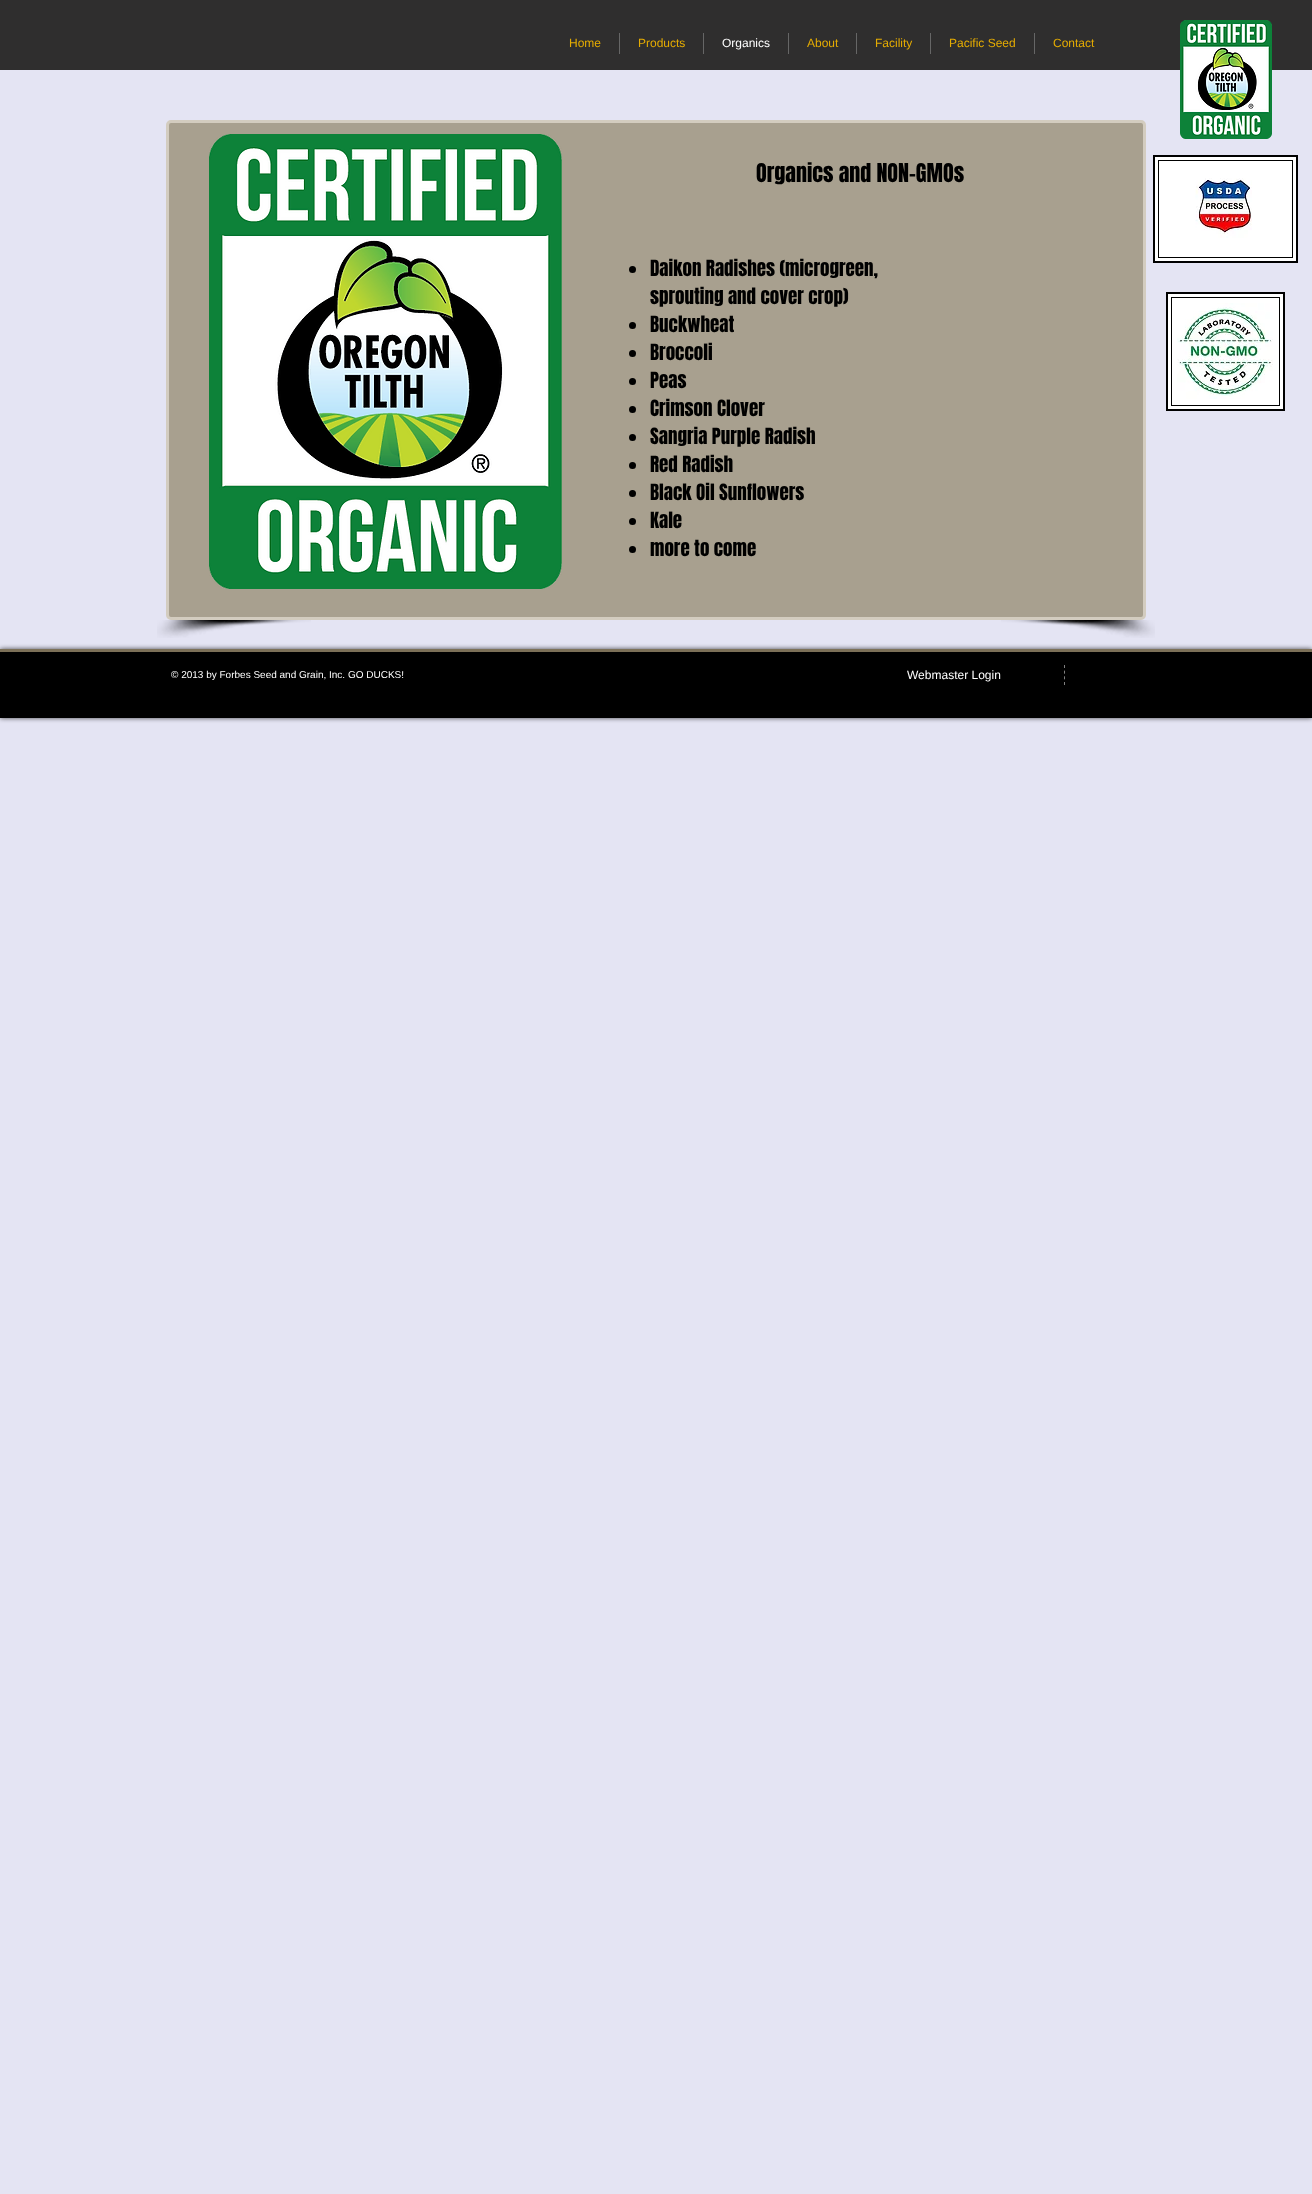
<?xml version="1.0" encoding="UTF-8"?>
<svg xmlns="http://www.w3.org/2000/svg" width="1312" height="2194">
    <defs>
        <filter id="blur1" x="-50%" y="-200%" width="200%" height="500%"><feGaussianBlur stdDeviation="2.5"/></filter>
    </defs>
    <rect width="100%" height="100%" fill="#E4E4F3"/>
    <rect x="0" y="0" width="1312" height="70" fill="#2F2E2E"/>
    <text x="569" y="47" font-family="Liberation Sans" font-size="12" fill="#E5AC02">Home</text>
    <rect x="619" y="33" width="1" height="21" fill="#666666"/>
    <text x="638" y="47" font-family="Liberation Sans" font-size="12" fill="#E5AC02">Products</text>
    <rect x="703" y="33" width="1" height="21" fill="#666666"/>
    <text x="722" y="47" font-family="Liberation Sans" font-size="12" fill="#FFFFFF">Organics</text>
    <rect x="788" y="33" width="1" height="21" fill="#666666"/>
    <text x="807" y="47" font-family="Liberation Sans" font-size="12" fill="#E5AC02">About</text>
    <rect x="856" y="33" width="1" height="21" fill="#666666"/>
    <text x="875" y="47" font-family="Liberation Sans" font-size="12" fill="#E5AC02">Facility</text>
    <rect x="930" y="33" width="1" height="21" fill="#666666"/>
    <text x="949" y="47" font-family="Liberation Sans" font-size="12" fill="#E5AC02">Pacific Seed</text>
    <rect x="1034" y="33" width="1" height="21" fill="#666666"/>
    <text x="1053" y="47" font-family="Liberation Sans" font-size="12" fill="#E5AC02">Contact</text>
    <image x="1180" y="20" width="92" height="119" href="img_01.png"/>
    <rect x="1154" y="156" width="143" height="106" fill="#FFFFFF" stroke="#000000" stroke-width="2"/>
    <image x="1195" y="178" width="57" height="60" href="img_02.png"/>
    <rect x="1158.5" y="160.5" width="134" height="97" fill="none" stroke="#000000"/>
    <rect x="1167" y="293" width="117" height="117" fill="#FFFFFF" stroke="#000000" stroke-width="2"/>
    <image x="1177" y="303" width="96" height="96" href="img_03.png"/>
    <rect x="1171.5" y="297.5" width="108" height="108" fill="none" stroke="#000000"/>
    <rect x="167.5" y="121.5" width="977" height="497" rx="3.5" fill="#A8A08F" stroke="#D3CCBF" stroke-width="3"/>
    <image x="157" y="620" width="154" height="18" href="img_04.png"/>
    <image x="1001" y="620" width="154" height="18" href="img_05.png"/>
    <image x="209" y="134" width="353" height="455" href="img_06.png"/>
    <text x="756" y="182" font-family="Anton" font-size="22" fill="#000000">Organics and NON-GMOs</text>
    <circle cx="632.5" cy="269.5" r="3.5" fill="#000000"/>
    <text font-family="Anton" font-size="19" fill="#000000">
        <tspan x="650" y="276">Daikon Radishes (microgreen,</tspan>
        <tspan x="650" y="304">sprouting and cover crop)</tspan>
    </text>
    <circle cx="632.5" cy="325.5" r="3.5" fill="#000000"/>
    <text x="650" y="332" font-family="Anton" font-size="19" fill="#000000">Buckwheat</text>
    <circle cx="632.5" cy="353.5" r="3.5" fill="#000000"/>
    <text x="650" y="360" font-family="Anton" font-size="19" fill="#000000">Broccoli</text>
    <circle cx="632.5" cy="381.5" r="3.5" fill="#000000"/>
    <text x="650" y="388" font-family="Anton" font-size="19" fill="#000000">Peas</text>
    <circle cx="632.5" cy="409.5" r="3.5" fill="#000000"/>
    <text x="650" y="416" font-family="Anton" font-size="19" fill="#000000">Crimson Clover</text>
    <circle cx="632.5" cy="437.5" r="3.5" fill="#000000"/>
    <text x="650" y="444" font-family="Anton" font-size="19" fill="#000000">Sangria Purple Radish</text>
    <circle cx="632.5" cy="465.5" r="3.5" fill="#000000"/>
    <text x="650" y="472" font-family="Anton" font-size="19" fill="#000000">Red Radish</text>
    <circle cx="632.5" cy="493.5" r="3.5" fill="#000000"/>
    <text x="650" y="500" font-family="Anton" font-size="19" fill="#000000">Black Oil Sunflowers</text>
    <circle cx="632.5" cy="521.5" r="3.5" fill="#000000"/>
    <text x="650" y="528" font-family="Anton" font-size="19" fill="#000000">Kale</text>
    <circle cx="632.5" cy="549.5" r="3.5" fill="#000000"/>
    <text x="650" y="556" font-family="Anton" font-size="19" fill="#000000">more to come</text>
    <rect x="0" y="649" width="1312" height="69" fill="#000000" fill-opacity="0.7" filter="url(#blur1)"/>
    <rect x="0" y="652" width="1312" height="66" fill="#000000"/>
    <rect x="0" y="649" width="1312" height="3" fill="#7C7058"/>
    <text x="171" y="678" font-family="Liberation Sans" font-size="10" fill="#FFFFFF">© 2013 by Forbes Seed and Grain, Inc. GO DUCKS!</text>
    <text x="907" y="679" font-family="Liberation Sans" font-size="12" fill="#FFFFFF">Webmaster Login</text>
    <path d="M 1064.5 665 V 685" fill="none" stroke="#808080" stroke-dasharray="3 2.67"/>
</svg>
